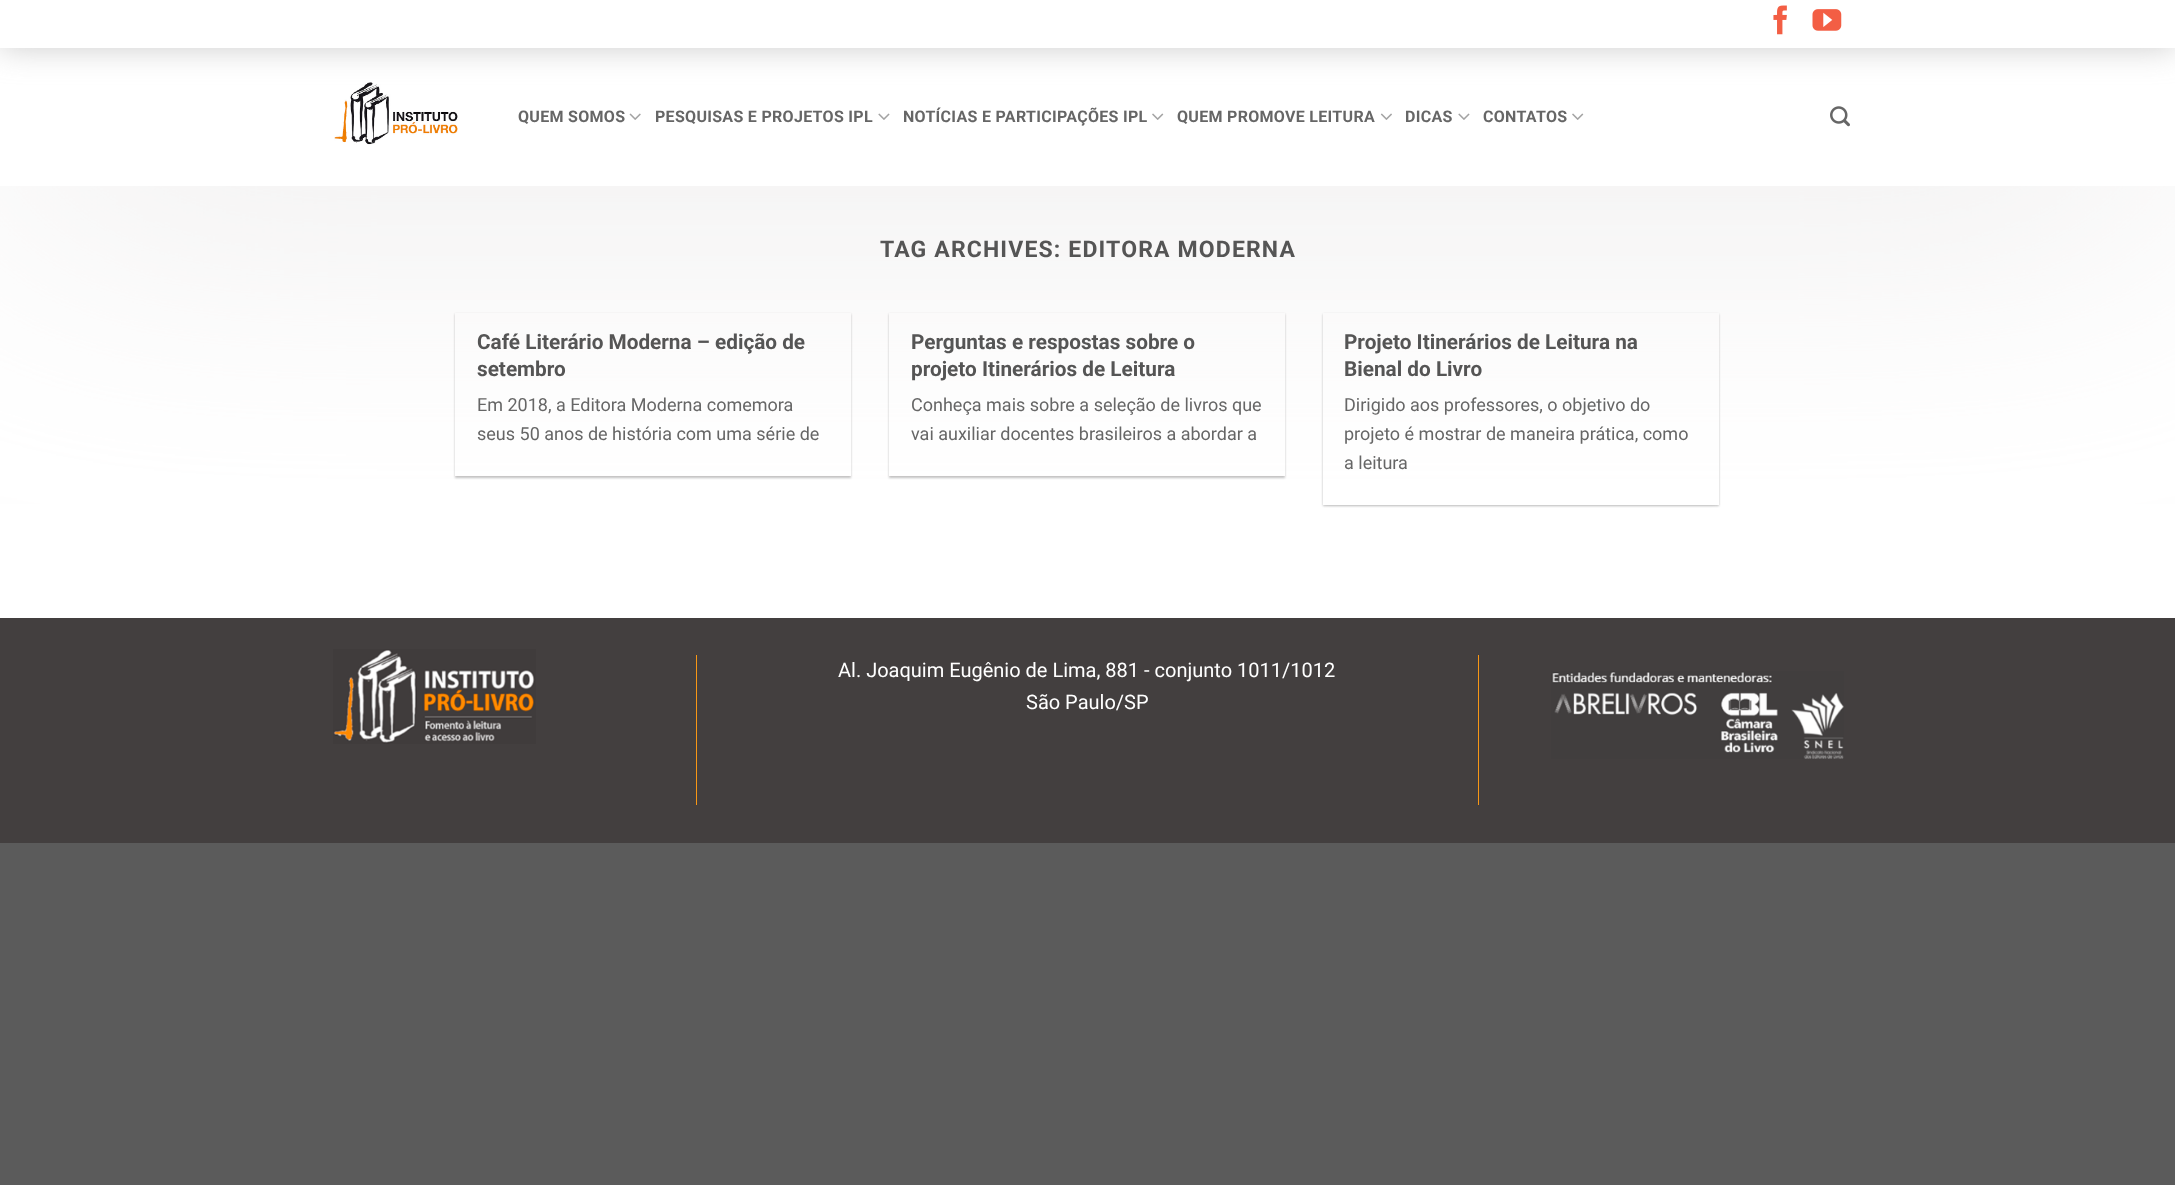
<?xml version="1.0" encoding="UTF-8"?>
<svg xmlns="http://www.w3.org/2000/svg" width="2175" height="1185">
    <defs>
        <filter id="blur1" x="-50%" y="-200%" width="200%" height="500%"><feGaussianBlur stdDeviation="1"/></filter>
        <filter id="blur2" x="-50%" y="-200%" width="200%" height="500%"><feGaussianBlur stdDeviation="2"/></filter>
        <clipPath id="clip1"><rect x="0" y="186" width="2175" height="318"/></clipPath>
        <filter id="blur3" x="-50%" y="-200%" width="200%" height="500%"><feGaussianBlur stdDeviation="156"/></filter>
        <filter id="blur4" x="-50%" y="-200%" width="200%" height="500%"><feGaussianBlur stdDeviation="15.5"/></filter>
        <clipPath id="clip2"><path d="M 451 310 H 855 V 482 H 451 Z M 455 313 H 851 V 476 H 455 Z" clip-rule="evenodd"/></clipPath>
        <clipPath id="clip3"><path d="M 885 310 H 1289 V 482 H 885 Z M 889 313 H 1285 V 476 H 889 Z" clip-rule="evenodd"/></clipPath>
    </defs>
    <rect width="100%" height="100%" fill="#5B5B5B"/>
    <rect x="0" y="48" width="2175" height="570" fill="#FFFFFF"/>
    <rect x="1323" y="314" width="396" height="192" fill="#000000" fill-opacity="0.24" filter="url(#blur1)"/>
    <rect x="1325" y="316" width="391" height="188" fill="#000000" fill-opacity="0.12" filter="url(#blur2)"/>
    <rect x="1323" y="313" width="396" height="192" fill="#FFFFFF"/>
    <rect x="0" y="618" width="2175" height="225" fill="#433F3F"/>
    <image x="333" y="649" width="203" height="95" href="img_09.png"/>
    <g clip-path="url(#clip1)">
        <rect x="0" y="0" width="2175" height="186" fill="#E7E5E5" filter="url(#blur3)"/>
    </g>
    <image x="334" y="82" width="124" height="63" href="img_03.png"/>
    <rect x="0" y="0" width="2175" height="48" fill="#CCCCCC" filter="url(#blur4)"/>
    <rect x="0" y="0" width="2175" height="48" fill="#FFFFFF"/>
    <image x="1773" y="5" width="14" height="30" href="img_01.png"/>
    <image x="1812" y="9" width="30" height="22" href="img_02.png"/>
    <text x="518" y="122" font-family="Roboto" font-size="16" font-weight="700" letter-spacing="0.3" fill="#666666">QUEM SOMOS</text>
    <image x="629" y="113" width="12" height="7" href="img_04.png"/>
    <text x="655" y="122" font-family="Roboto" font-size="16" font-weight="700" letter-spacing="0.3" fill="#666666">PESQUISAS E PROJETOS IPL</text>
    <image x="878" y="113" width="12" height="7" href="img_05.png"/>
    <text x="903" y="122" font-family="Roboto" font-size="16" font-weight="700" letter-spacing="0.3" fill="#666666">NOTÍCIAS E PARTICIPAÇÕES IPL</text>
    <image x="1152" y="113" width="12" height="7" href="img_06.png"/>
    <text x="1177" y="122" font-family="Roboto" font-size="16" font-weight="700" letter-spacing="0.3" fill="#666666">QUEM PROMOVE LEITURA</text>
    <image x="1380" y="113" width="12" height="7" href="img_07.png"/>
    <text x="1405" y="122" font-family="Roboto" font-size="16" font-weight="700" letter-spacing="0.3" fill="#666666">DICAS</text>
    <image x="1458" y="113" width="12" height="7" href="img_05.png"/>
    <text x="1483" y="122" font-family="Roboto" font-size="16" font-weight="700" letter-spacing="0.3" fill="#666666">CONTATOS</text>
    <image x="1572" y="113" width="12" height="7" href="img_06.png"/>
    <image x="1830" y="106" width="20" height="21" href="img_08.png"/>
    <text x="880" y="257" font-family="Roboto" font-size="23" font-weight="700" letter-spacing="1.15" fill="#555555">TAG ARCHIVES: EDITORA MODERNA</text>
    <g clip-path="url(#clip2)">
        <rect x="455" y="314" width="396" height="164" fill="#000000" fill-opacity="0.24" filter="url(#blur1)"/>
    </g>
    <text font-family="Roboto" font-size="20.75" font-weight="700" fill="#555555">
        <tspan x="477" y="349">Café Literário Moderna – edição de</tspan>
        <tspan x="477" y="376">setembro</tspan>
    </text>
    <text font-family="Roboto" font-size="18" fill="#666666">
        <tspan x="477" y="411">Em 2018, a Editora Moderna comemora</tspan>
        <tspan x="477" y="440">seus 50 anos de história com uma série de</tspan>
    </text>
    <g clip-path="url(#clip3)">
        <rect x="889" y="314" width="396" height="164" fill="#000000" fill-opacity="0.24" filter="url(#blur1)"/>
    </g>
    <text font-family="Roboto" font-size="20.75" font-weight="700" fill="#555555">
        <tspan x="911" y="349">Perguntas e respostas sobre o</tspan>
        <tspan x="911" y="376">projeto Itinerários de Leitura</tspan>
    </text>
    <text font-family="Roboto" font-size="18" fill="#666666">
        <tspan x="911" y="411">Conheça mais sobre a seleção de livros que</tspan>
        <tspan x="911" y="440">vai auxiliar docentes brasileiros a abordar a</tspan>
    </text>
    <text font-family="Roboto" font-size="20.75" font-weight="700" fill="#555555">
        <tspan x="1344" y="349">Projeto Itinerários de Leitura na</tspan>
        <tspan x="1344" y="376">Bienal do Livro</tspan>
    </text>
    <text font-family="Roboto" font-size="18" fill="#666666">
        <tspan x="1344" y="411">Dirigido aos professores, o objetivo do</tspan>
        <tspan x="1344" y="440">projeto é mostrar de maneira prática, como</tspan>
        <tspan x="1344" y="469">a leitura</tspan>
    </text>
    <rect x="696" y="655" width="1" height="150" fill="#F89715"/>
    <rect x="1478" y="655" width="1" height="150" fill="#F89715"/>
    <text x="838" y="677" font-family="Roboto" font-size="20" fill="#FFFFFF">Al. Joaquim Eugênio de Lima, 881 - conjunto 1011/1012</text>
    <text x="1026" y="709" font-family="Roboto" font-size="20" fill="#FFFFFF">São Paulo/SP</text>
    <image x="1551" y="671" width="293" height="88" href="img_10.png"/>
</svg>
